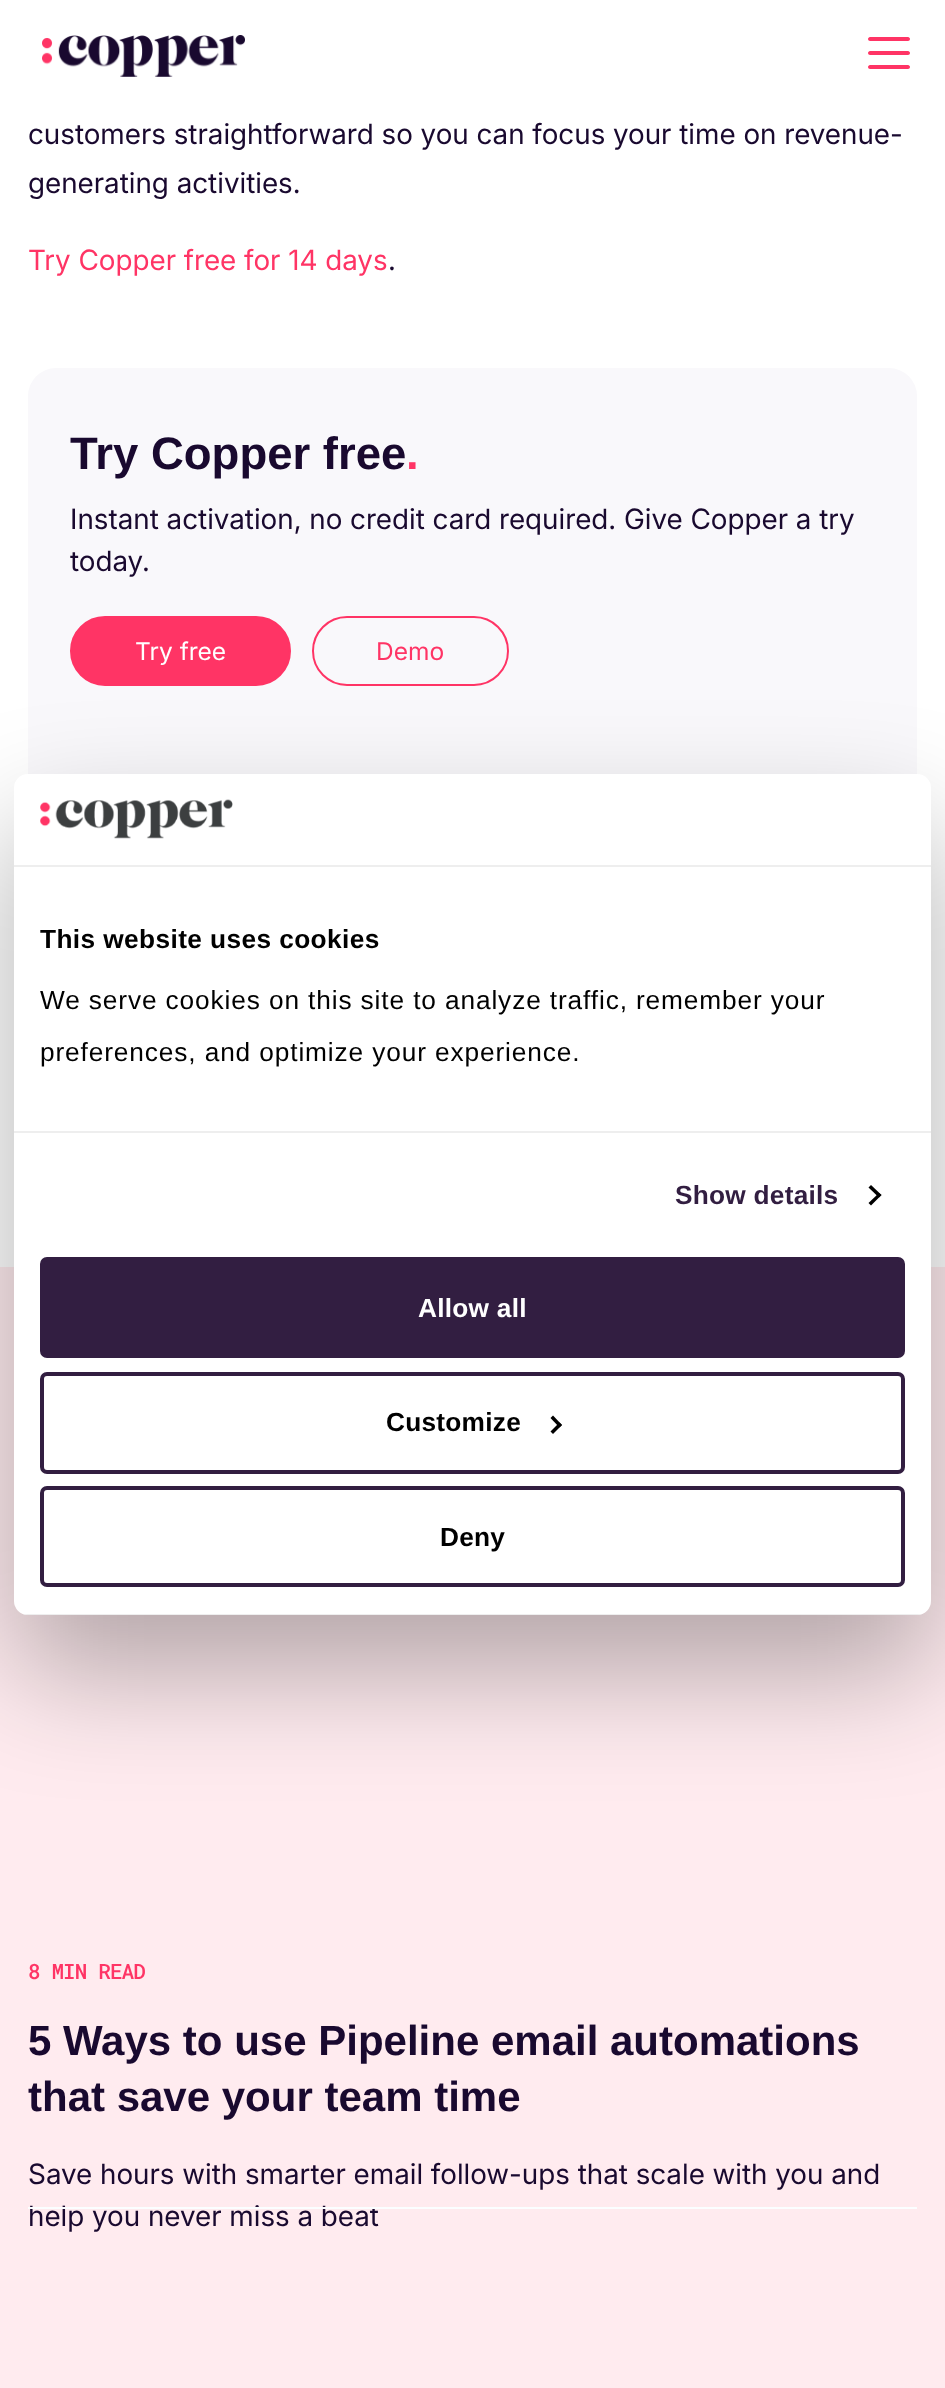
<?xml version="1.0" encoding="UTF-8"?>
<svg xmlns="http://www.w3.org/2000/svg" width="945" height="2388">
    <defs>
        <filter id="blur1" x="-50%" y="-200%" width="200%" height="500%"><feGaussianBlur stdDeviation="59.5"/></filter>
        <clipPath id="clip1"><rect x="14" y="774" width="917" height="841" rx="14"/></clipPath>
    </defs>
    <rect width="100%" height="100%" fill="#FFFFFF"/>
    <image x="42" y="35" width="203" height="42" href="img_01.png"/>
    <path d="M 870 37 H 889 V 41 H 870 C 869 41 868 40 868 39 C 868 38 869 37 870 37 Z" fill="#FF3465"/>
    <path d="M 889 37 H 908 C 909 37 910 38 910 39 C 910 40 909 41 908 41 H 889 Z" fill="#FF3465"/>
    <path d="M 870 51 H 889 V 55 H 870 C 869 55 868 54 868 53 C 868 52 869 51 870 51 Z" fill="#FF3465"/>
    <path d="M 889 51 H 908 C 909 51 910 52 910 53 C 910 54 909 55 908 55 H 889 Z" fill="#FF3465"/>
    <path d="M 870 65 H 889 V 69 H 870 C 869 69 868 68 868 67 C 868 66 869 65 870 65 Z" fill="#FF3465"/>
    <path d="M 889 65 H 908 C 909 65 910 66 910 67 C 910 68 909 69 908 69 H 889 Z" fill="#FF3465"/>
    <text font-family="Inter" font-size="28" fill="#19092F">
        <tspan x="28" y="144">customers straightforward so you can focus your time on revenue-</tspan>
        <tspan x="28" y="193">generating activities.</tspan>
    </text>
    <text x="28" y="270" font-family="Inter" font-size="28" fill="#FF3465">Try Copper free for 14 days</text>
    <text x="388" y="270" font-family="Inter" font-size="28" fill="#19092F">.</text>
    <rect x="28" y="368" width="889" height="843" rx="28" fill="#F9F8FB"/>
    <text x="70" y="469" font-family="Liberation Sans" font-size="45.5" font-weight="700" fill="#19092F">Try Copper free</text>
    <text x="406" y="469" font-family="Liberation Sans" font-size="45.5" font-weight="700" fill="#FF3465">.</text>
    <text font-family="Inter" font-size="28" fill="#19092F">
        <tspan x="70" y="529">Instant activation, no credit card required. Give Copper a try</tspan>
        <tspan x="70" y="571">today.</tspan>
    </text>
    <rect x="71" y="617" width="219" height="68" rx="34" fill="#FF3465" stroke="#FF3465" stroke-width="2"/>
    <text x="135" y="660" font-family="'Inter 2'" font-size="24.5" fill="#FFFFFF">Try free</text>
    <rect x="313" y="617" width="195" height="68" rx="34" fill="none" stroke="#FF3465" stroke-width="2"/>
    <text x="376" y="660" font-family="'Inter 2'" font-size="24.5" fill="#FF3465">Demo</text>
    <rect x="0" y="1267" width="945" height="1121" fill="#FFEBEF"/>
    <text x="28" y="1979" font-family="Roboto Mono" font-size="21" font-weight="500" letter-spacing="-0.9" fill="#FF3465">8 MIN READ</text>
    <text font-family="Liberation Sans" font-size="42" font-weight="700" fill="#19092F">
        <tspan x="28" y="2055">5 Ways to use Pipeline email automations</tspan>
        <tspan x="28" y="2111">that save your team time</tspan>
    </text>
    <text font-family="Inter" font-size="28" fill="#19092F">
        <tspan x="28" y="2184">Save hours with smarter email follow-ups that scale with you and</tspan>
        <tspan x="28" y="2226">help you never miss a beat</tspan>
    </text>
    <rect x="28" y="2207" width="889" height="2" fill="#FCFEFF"/>
    <rect x="14" y="830" width="917" height="841" rx="14" fill="#000000" fill-opacity="0.3" filter="url(#blur1)"/>
    <rect x="14" y="774" width="917" height="841" rx="14" fill="#FFFFFF"/>
    <rect x="14" y="865" width="917" height="2" fill="#EEEEEE"/>
    <image x="40" y="799" width="193" height="40" href="img_02.png"/>
    <rect x="14" y="1131" width="917" height="2" fill="#EEEEEE"/>
    <text x="40" y="948" font-family="Liberation Sans" font-size="26.25" font-weight="700" letter-spacing="0.4" fill="#000000">This website uses cookies</text>
    <text font-family="Liberation Sans" font-size="26.25" letter-spacing="0.88" fill="#000000">
        <tspan x="40" y="1009">We serve cookies on this site to analyze traffic, remember your</tspan>
        <tspan x="40" y="1061">preferences, and optimize your experience.</tspan>
    </text>
    <text x="675" y="1204" font-family="Liberation Sans" font-size="26.25" font-weight="700" letter-spacing="0.25" fill="#321E41">Show details</text>
    <path d="M 871 1185 L 881.5 1195 L 879 1197.5 L 868.5 1187.5 Z" fill="#000000"/>
    <path d="M 879 1193 L 881.5 1195 L 871 1205.5 L 868.5 1203 Z" fill="#000000"/>
    <g clip-path="url(#clip1)">
        <rect x="23" y="1614" width="899" height="1" fill="#EEEEEE"/>
    </g>
    <rect x="42" y="1259" width="861" height="97" rx="5" fill="#321E41" stroke="#321E41" stroke-width="4"/>
    <text x="418" y="1317" font-family="Liberation Sans" font-size="26.25" font-weight="700" letter-spacing="0.25" fill="#FFFFFF">Allow all</text>
    <rect x="42" y="1374" width="861" height="98" rx="5" fill="none" stroke="#321E41" stroke-width="4"/>
    <text x="386" y="1431" font-family="Liberation Sans" font-size="26.25" font-weight="700" letter-spacing="0.25" fill="#000000">Customize</text>
    <path d="M 553 1415.5 L 562 1425 L 559.5 1427.5 L 550.5 1418 Z" fill="#000000"/>
    <path d="M 559.5 1422.5 L 562 1425 L 553 1434 L 550.5 1431.5 Z" fill="#000000"/>
    <rect x="42" y="1488" width="861" height="97" rx="5" fill="none" stroke="#321E41" stroke-width="4"/>
    <text x="440" y="1546" font-family="Liberation Sans" font-size="26.25" font-weight="700" letter-spacing="0.25" fill="#000000">Deny</text>
</svg>
